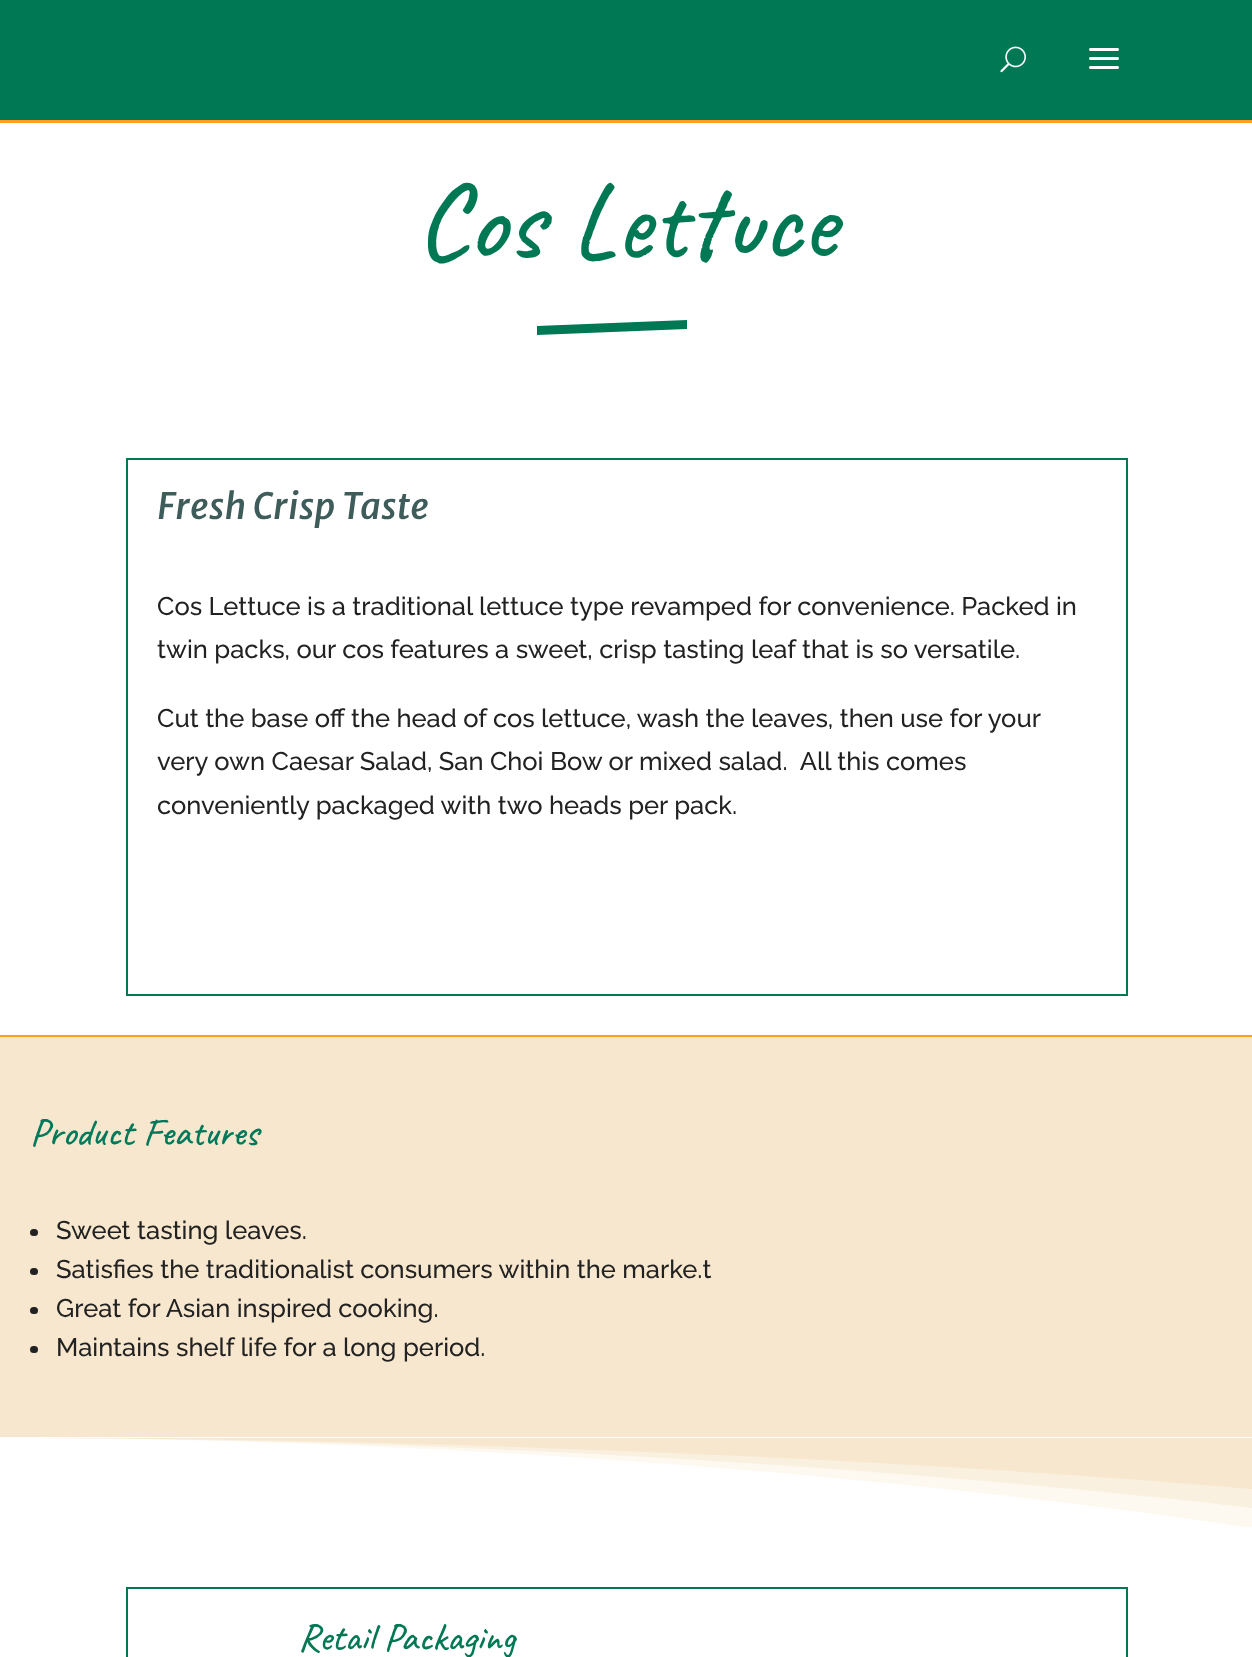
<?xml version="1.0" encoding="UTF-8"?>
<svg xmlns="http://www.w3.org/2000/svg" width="1252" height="1657">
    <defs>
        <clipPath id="clip1"><rect x="0" y="1437" width="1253" height="90"/></clipPath>
    </defs>
    <rect width="100%" height="100%" fill="#FFFFFF"/>
    <rect x="0" y="0" width="1252" height="120" fill="#007854"/>
    <rect x="0" y="120" width="1252" height="3" fill="#FAA21C"/>
    <image x="1000" y="46" width="26" height="27" href="img_01.png"/>
    <image x="1089" y="48" width="30" height="21" href="img_02.png"/>
    <text x="416" y="257" font-family="Caveat" font-size="108" font-weight="500" fill="#007854">Cos Lettuce</text>
    <path d="M 537 326 L 687 320 V 329 L 537 335 Z" fill="#007854"/>
    <rect x="127" y="459" width="1000" height="536" fill="none" stroke="#007854" stroke-width="2"/>
    <text x="157" y="519" font-family="Merriweather Sans" font-size="36" font-weight="500" font-style="italic" fill="#3E5C5A">Fresh Crisp Taste</text>
    <text font-family="Raleway" font-size="25.5" font-weight="100" fill="#222222">
        <tspan x="157" y="615">Cos Lettuce is a traditional lettuce type revamped for convenience. Packed in</tspan>
        <tspan x="157" y="658">twin packs, our cos features a sweet, crisp tasting leaf that is so versatile.</tspan>
    </text>
    <text font-family="Raleway" font-size="25.5" font-weight="100" fill="#222222" xml:space="preserve"><tspan x="157" y="727">Cut the base off the head of cos lettuce, wash the leaves, then use for your</tspan><tspan x="157" y="770">very own Caesar Salad, San Choi Bow or mixed salad.  All this comes</tspan><tspan x="157" y="814">conveniently packaged with two heads per pack.</tspan></text>
    <rect x="0" y="1037" width="1252" height="400" fill="#F7E7CE"/>
    <rect x="0" y="1035" width="1252" height="2" fill="#FAA21C"/>
    <text x="30" y="1145" font-family="Caveat" font-size="39" font-weight="500" fill="#00785A">Product Features</text>
    <rect x="30" y="1229" width="8" height="7" rx="3.5" fill="#222222"/>
    <text x="56" y="1239" font-family="Raleway" font-size="25.5" font-weight="100" fill="#222222">Sweet tasting leaves.</text>
    <rect x="30" y="1268" width="8" height="7" rx="3.5" fill="#222222"/>
    <text x="56" y="1278" font-family="Raleway" font-size="25.5" font-weight="100" fill="#222222">Satisfies the traditionalist consumers within the marke.t</text>
    <rect x="30" y="1307" width="8" height="7" rx="3.5" fill="#222222"/>
    <text x="56" y="1317" font-family="Raleway" font-size="25.5" font-weight="100" fill="#222222">Great for Asian inspired cooking.</text>
    <rect x="30" y="1346" width="8" height="7" rx="3.5" fill="#222222"/>
    <text x="56" y="1356" font-family="Raleway" font-size="25.5" font-weight="100" fill="#222222">Maintains shelf life for a long period.</text>
    <g clip-path="url(#clip1)">
        <path d="M 1252 1438 H 0 C 692 1438 1252 1528 1252 1528 Z" fill="#FDF8F0"/>
    </g>
    <path d="M 1252 1438 H 0 C 692 1438 1252 1508 1252 1508 Z" fill="#F7E7CE" fill-opacity="0.5"/>
    <path d="M 1252 1438 H 0 C 692 1438 1252 1489 1252 1489 Z" fill="#F7E7CE"/>
    <rect x="127" y="1588" width="1000" height="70" fill="none" stroke="#007854" stroke-width="2"/>
    <text x="298" y="1650" font-family="Caveat" font-size="39" font-weight="500" fill="#007854">Retail Packaging</text>
</svg>
